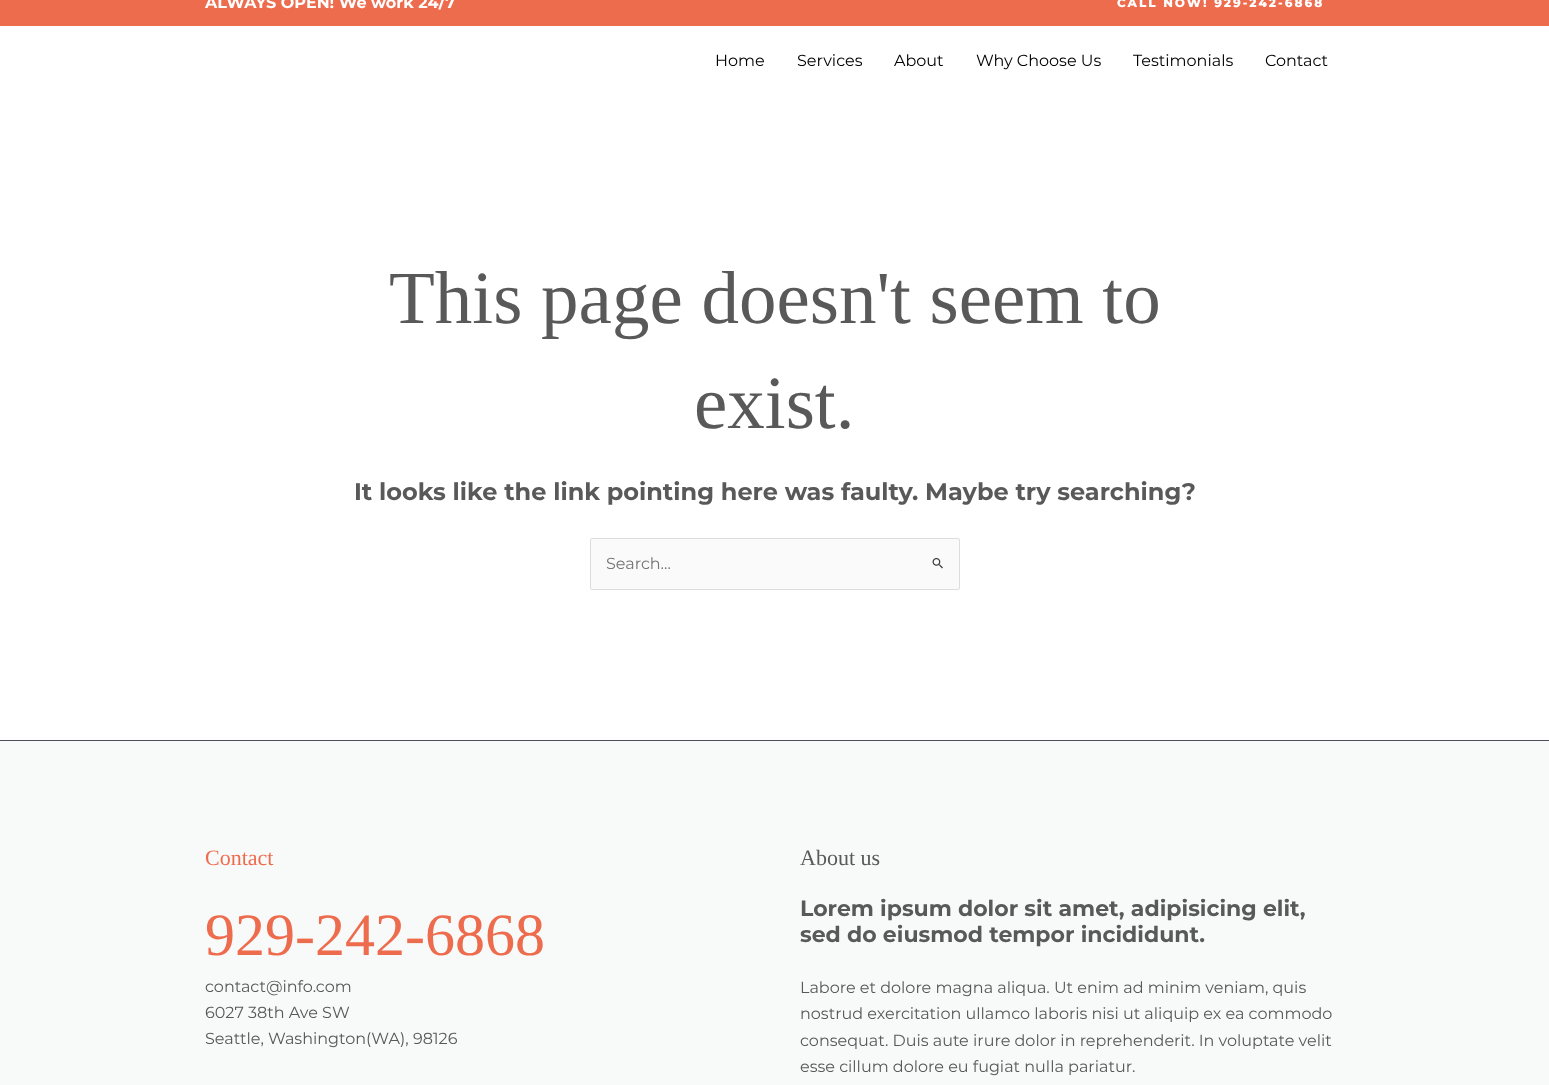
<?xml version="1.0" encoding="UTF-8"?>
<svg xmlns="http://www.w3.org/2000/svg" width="1549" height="1085">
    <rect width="100%" height="100%" fill="#FFFFFF"/>
    <rect x="0" y="0" width="1549" height="26" fill="#EE6C4E"/>
    <text x="205" y="8" font-family="Montserrat" font-size="16" font-weight="700" fill="#FFFFFF">ALWAYS OPEN! We work 24/7</text>
    <text x="1117" y="7" font-family="Montserrat" font-size="12" font-weight="800" letter-spacing="2" fill="#FFFFFF">CALL NOW! 929-242-6868</text>
    <text x="715" y="66" font-family="Montserrat" font-size="16" fill="#000000">Home</text>
    <text x="797" y="66" font-family="Montserrat" font-size="16" fill="#000000">Services</text>
    <text x="894" y="66" font-family="Montserrat" font-size="16" fill="#000000">About</text>
    <text x="976" y="66" font-family="Montserrat" font-size="16" fill="#000000">Why Choose Us</text>
    <text x="1133" y="66" font-family="Montserrat" font-size="16" fill="#000000">Testimonials</text>
    <text x="1265" y="66" font-family="Montserrat" font-size="16" fill="#000000">Contact</text>
    <text x="389" y="323" font-family="Liberation Serif" font-size="75" fill="#595959">This page doesn't seem to</text>
    <text x="694" y="428" font-family="Liberation Serif" font-size="75" fill="#595959">exist.</text>
    <text x="354" y="500" font-family="Montserrat" font-size="24" font-weight="700" fill="#595959">It looks like the link pointing here was faulty. Maybe try searching?</text>
    <rect x="590.5" y="538.5" width="369" height="51" rx="1.5" fill="#FAFAFA" stroke="#DDDDDD"/>
    <text x="606" y="569" font-family="Montserrat" font-size="16" fill="#757575">Search...</text>
    <image x="932" y="558" width="11" height="11" href="img_01.png"/>
    <rect x="0" y="741" width="1549" height="344" fill="#F8F9F9"/>
    <rect x="0" y="740" width="1549" height="1" fill="#4A4F5D"/>
    <text x="205" y="865" font-family="Liberation Serif" font-size="22" fill="#EE6C4E">Contact</text>
    <text x="205" y="955" font-family="Liberation Serif" font-size="60" fill="#EE6C4E">929-242-6868</text>
    <text font-family="Montserrat" font-size="16" fill="#595959">
        <tspan x="205" y="992">contact@info.com</tspan>
        <tspan x="205" y="1018">6027 38th Ave SW</tspan>
        <tspan x="205" y="1044">Seattle, Washington(WA), 98126</tspan>
    </text>
    <text x="800" y="865" font-family="Liberation Serif" font-size="22" fill="#595959">About us</text>
    <text font-family="Montserrat" font-size="22" font-weight="700" fill="#595959">
        <tspan x="800" y="916">Lorem ipsum dolor sit amet, adipisicing elit,</tspan>
        <tspan x="800" y="942">sed do eiusmod tempor incididunt.</tspan>
    </text>
    <text font-family="Montserrat" font-size="16" fill="#595959">
        <tspan x="800" y="993">Labore et dolore magna aliqua. Ut enim ad minim veniam, quis</tspan>
        <tspan x="800" y="1019">nostrud exercitation ullamco laboris nisi ut aliquip ex ea commodo</tspan>
        <tspan x="800" y="1046">consequat. Duis aute irure dolor in reprehenderit. In voluptate velit</tspan>
        <tspan x="800" y="1072">esse cillum dolore eu fugiat nulla pariatur.</tspan>
    </text>
</svg>
